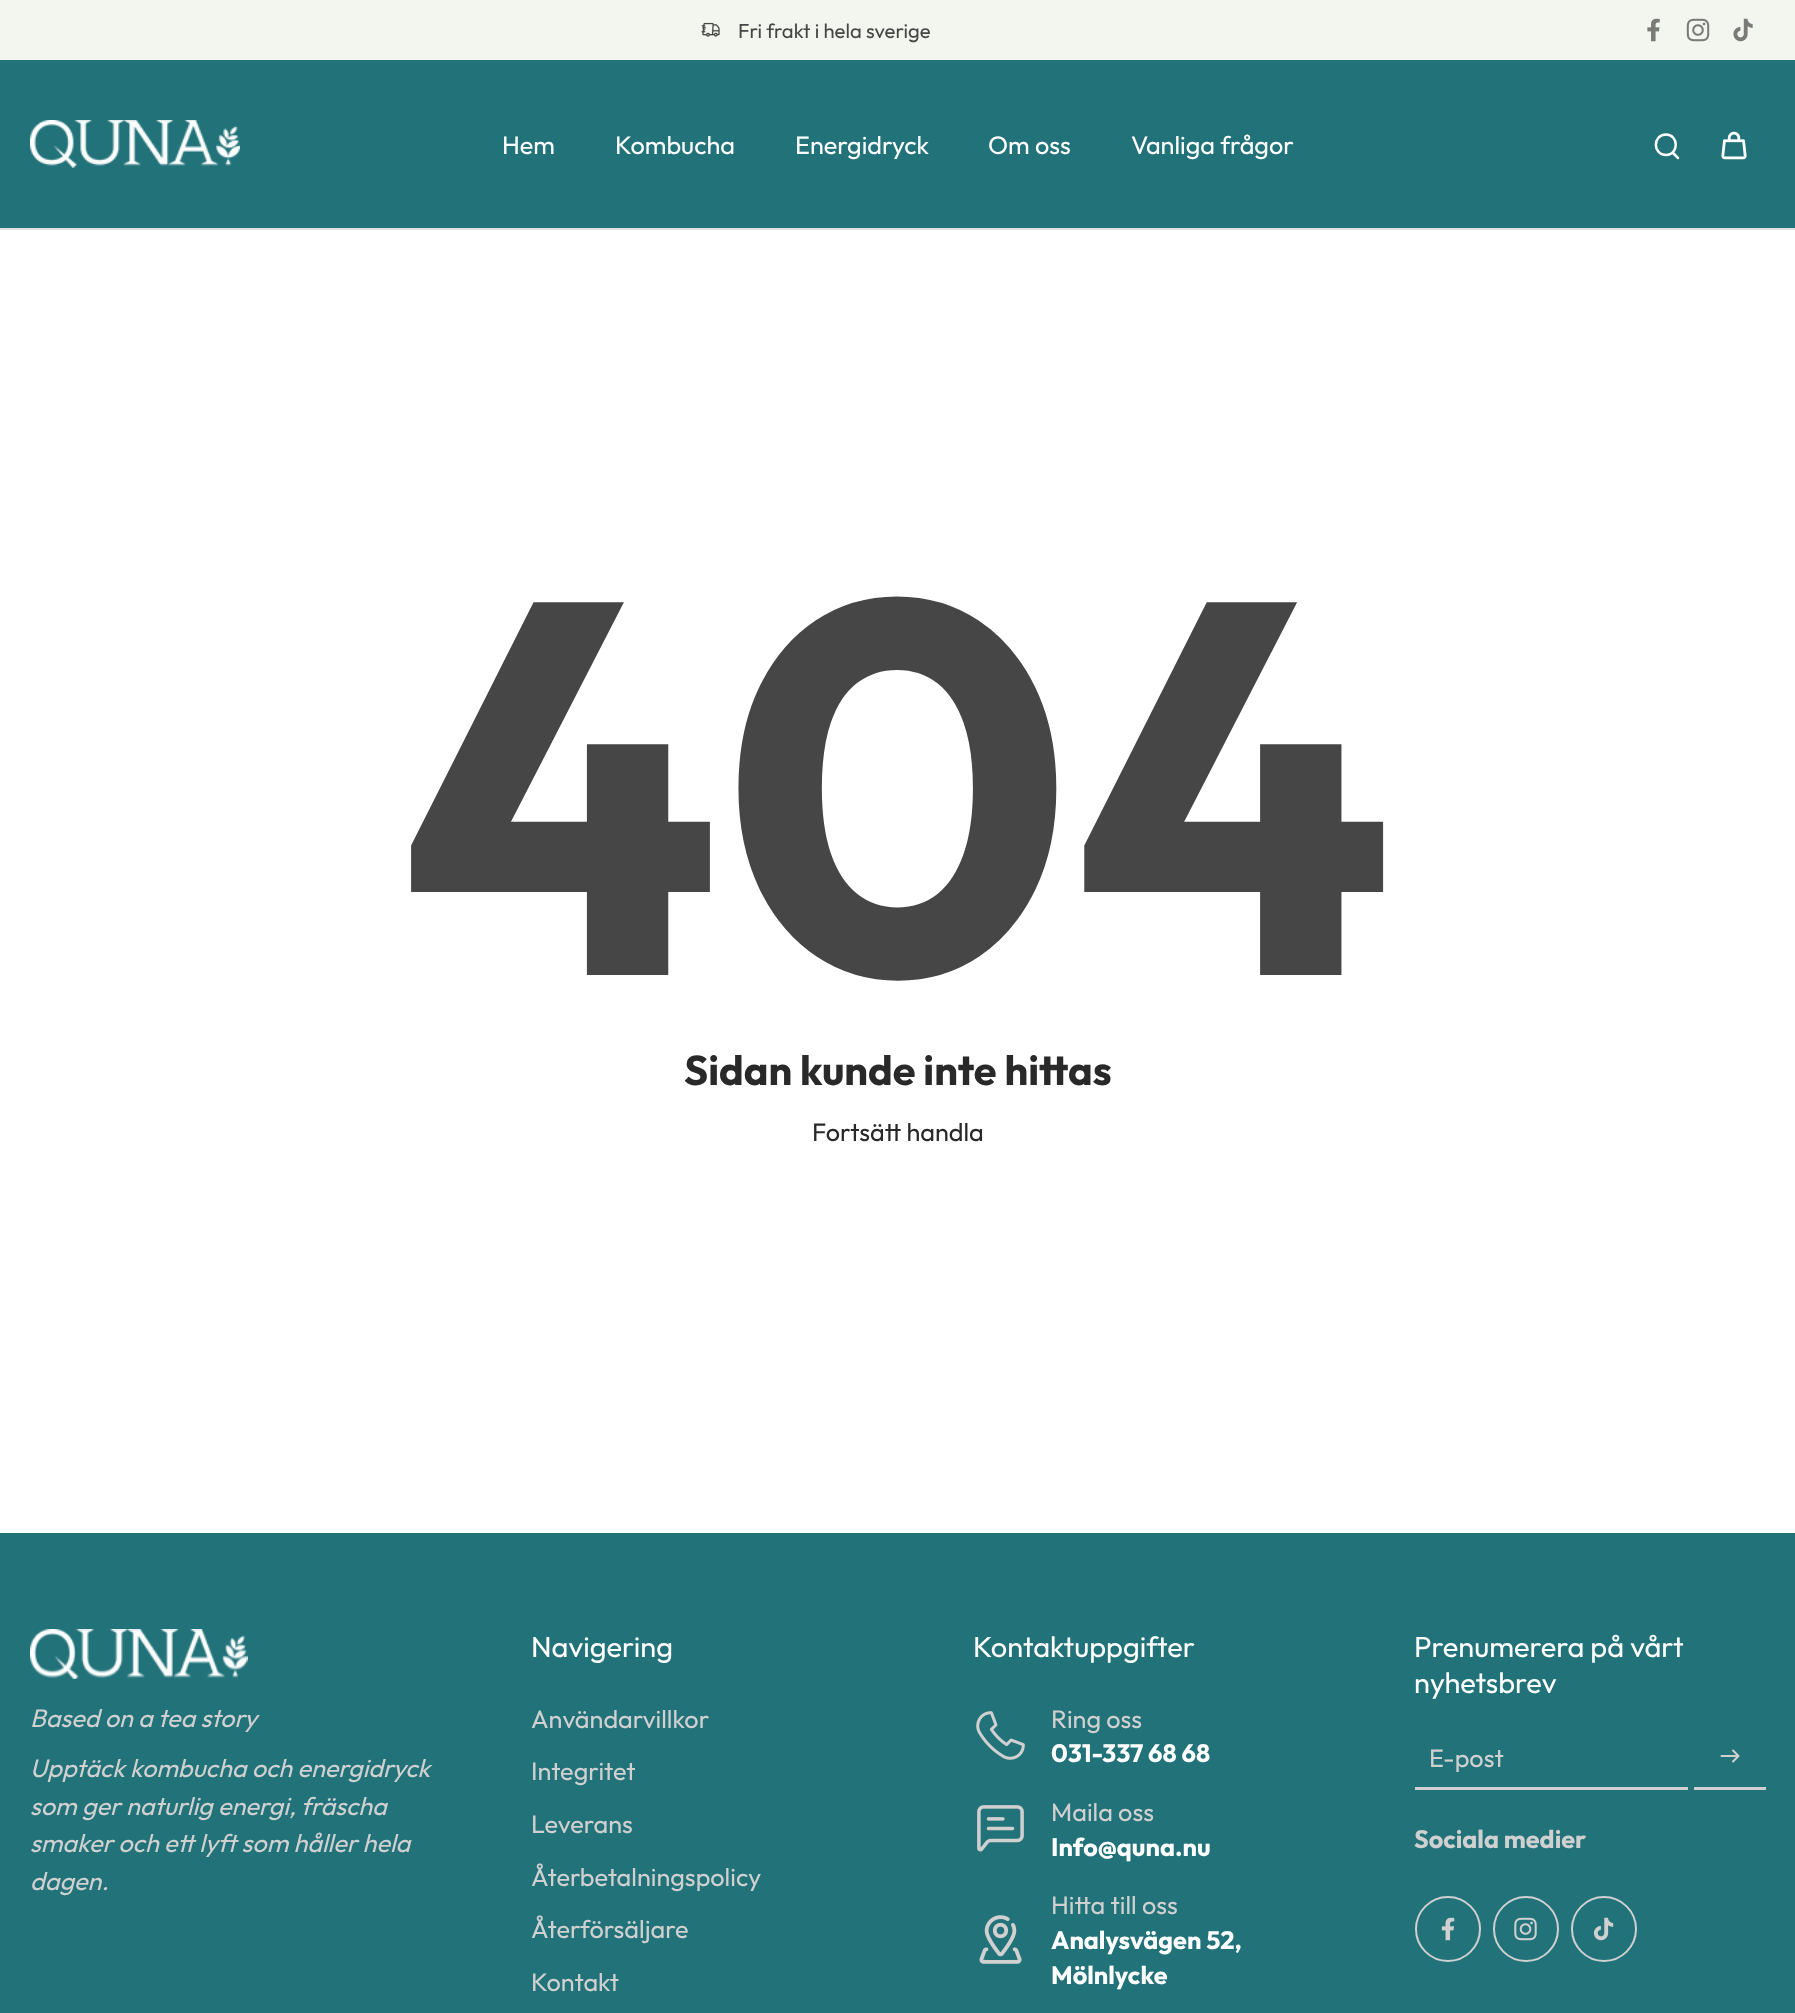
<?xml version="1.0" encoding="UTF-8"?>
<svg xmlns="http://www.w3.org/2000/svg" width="1795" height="2013">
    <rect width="100%" height="100%" fill="#FFFFFF"/>
    <rect x="0" y="0" width="1795" height="60" fill="#F3F6EF"/>
    <image x="701" y="22" width="19" height="15" href="img_01.png"/>
    <text x="738" y="38" font-family="Outfit" font-size="20.25" fill="#454645">Fri frakt i hela sverige</text>
    <image x="1647" y="18" width="13" height="24" href="img_02.png"/>
    <image x="1686" y="18" width="24" height="24" href="img_03.png"/>
    <image x="1733" y="18" width="20" height="24" href="img_04.png"/>
    <rect x="0" y="60" width="1795" height="168" fill="#217279"/>
    <image x="30" y="120" width="210" height="48" href="img_05.png"/>
    <text x="502" y="154" font-family="Outfit" font-size="25.25" fill="#FFFFFF">Hem</text>
    <text x="615" y="154" font-family="Outfit" font-size="25.25" fill="#FFFFFF">Kombucha</text>
    <text x="795" y="154" font-family="Outfit" font-size="25.25" fill="#FFFFFF">Energidryck</text>
    <text x="988" y="154" font-family="Outfit" font-size="25.25" fill="#FFFFFF">Om oss</text>
    <text x="1131" y="154" font-family="Outfit" font-size="25.25" fill="#FFFFFF">Vanliga frågor</text>
    <path d="M 1666 155 C 1679 155 1679 134.5 1666 134.5 C 1652.5 134.5 1652.5 155 1666 155 Z" fill="none" stroke="#FFFFFF" stroke-width="2.5"/>
    <path d="M 1673 153 L 1678 158" fill="none" stroke="#FFFFFF" stroke-width="2.5" stroke-linecap="round"/>
    <image x="1721" y="131" width="26" height="29" href="img_06.png"/>
    <rect x="0" y="228" width="1795" height="2" fill="#E1E3E1"/>
    <text x="400" y="975" font-family="Outfit" font-size="528" font-weight="700" fill="#454645">404</text>
    <text x="684" y="1085" font-family="Outfit" font-size="41.5" font-weight="700" fill="#282928">Sidan kunde inte hittas</text>
    <text x="812" y="1141" font-family="Outfit" font-size="25.25" fill="#282928">Fortsätt handla</text>
    <rect x="0" y="1533" width="1795" height="480" fill="#217279"/>
    <image x="30" y="1629" width="218" height="50" href="img_07.png"/>
    <text font-family="Outfit" font-size="25.25" font-style="italic" fill="#D0D0D0">
        <tspan x="30" y="1727">Based on a tea story</tspan>
        <tspan x="30" y="1777">Upptäck kombucha och energidryck</tspan>
        <tspan x="30" y="1815">som ger naturlig energi, fräscha</tspan>
        <tspan x="30" y="1852">smaker och ett lyft som håller hela</tspan>
        <tspan x="30" y="1890">dagen.</tspan>
    </text>
    <text x="531" y="1657" font-family="Outfit" font-size="29" fill="#FFFFFF">Navigering</text>
    <text x="531" y="1728" font-family="Outfit" font-size="25.25" fill="#D0D0D0">Användarvillkor</text>
    <text x="531" y="1780" font-family="Outfit" font-size="25.25" fill="#D0D0D0">Integritet</text>
    <text x="531" y="1833" font-family="Outfit" font-size="25.25" fill="#D0D0D0">Leverans</text>
    <text x="531" y="1886" font-family="Outfit" font-size="25.25" fill="#D0D0D0">Återbetalningspolicy</text>
    <text x="531" y="1938" font-family="Outfit" font-size="25.25" fill="#D0D0D0">Återförsäljare</text>
    <text x="531" y="1991" font-family="Outfit" font-size="25.25" fill="#D0D0D0">Kontakt</text>
    <text x="973" y="1657" font-family="Outfit" font-size="29" fill="#FFFFFF">Kontaktuppgifter</text>
    <image x="976" y="1711" width="49" height="49" href="img_08.png"/>
    <text x="1051" y="1728" font-family="Outfit" font-size="25.25" fill="#D0D0D0">Ring oss</text>
    <text x="1051" y="1762" font-family="Outfit" font-size="25.25" font-weight="700" fill="#FFFFFF">031-337 68 68</text>
    <image x="977" y="1805" width="47" height="47" href="img_09.png"/>
    <text x="1051" y="1821" font-family="Outfit" font-size="25.25" fill="#D0D0D0">Maila oss</text>
    <text x="1051" y="1856" font-family="Outfit" font-size="25.25" font-weight="700" fill="#FFFFFF">Info@quna.nu</text>
    <image x="979" y="1915" width="43" height="49" href="img_10.png"/>
    <text x="1051" y="1914" font-family="Outfit" font-size="25.25" fill="#D0D0D0">Hitta till oss</text>
    <text font-family="Outfit" font-size="25.25" font-weight="700" fill="#FFFFFF">
        <tspan x="1051" y="1949">Analysvägen 52,</tspan>
        <tspan x="1051" y="1984">Mölnlycke</tspan>
    </text>
    <text font-family="Outfit" font-size="29" fill="#FFFFFF">
        <tspan x="1414" y="1657">Prenumerera på vårt</tspan>
        <tspan x="1414" y="1693">nyhetsbrev</tspan>
    </text>
    <text x="1429" y="1767" font-family="Outfit" font-size="25.25" fill="#D0D0D0">E-post</text>
    <rect x="1415" y="1787" width="273" height="3" fill="#D0D0D0"/>
    <rect x="1694" y="1787" width="72" height="3" fill="#D0D0D0"/>
    <path d="M 1733 1761.5 L 1738.5 1756 L 1733 1750.5 M 1721.5 1756 H 1737.5" fill="none" stroke="#D0D0D0" stroke-width="2.1" stroke-linecap="round" stroke-linejoin="round"/>
    <text x="1414" y="1848" font-family="Outfit" font-size="25.25" font-weight="700" fill="#D0D0D0">Sociala medier</text>
    <circle cx="1448" cy="1929" r="32" fill="none" stroke="#D0D0D0" stroke-width="2"/>
    <image x="1441" y="1917" width="14" height="24" href="img_11.png"/>
    <circle cx="1526" cy="1929" r="32" fill="none" stroke="#D0D0D0" stroke-width="2"/>
    <image x="1514" y="1917" width="23" height="24" href="img_12.png"/>
    <circle cx="1604" cy="1929" r="32" fill="none" stroke="#D0D0D0" stroke-width="2"/>
    <image x="1593" y="1917" width="21" height="24" href="img_13.png"/>
</svg>
